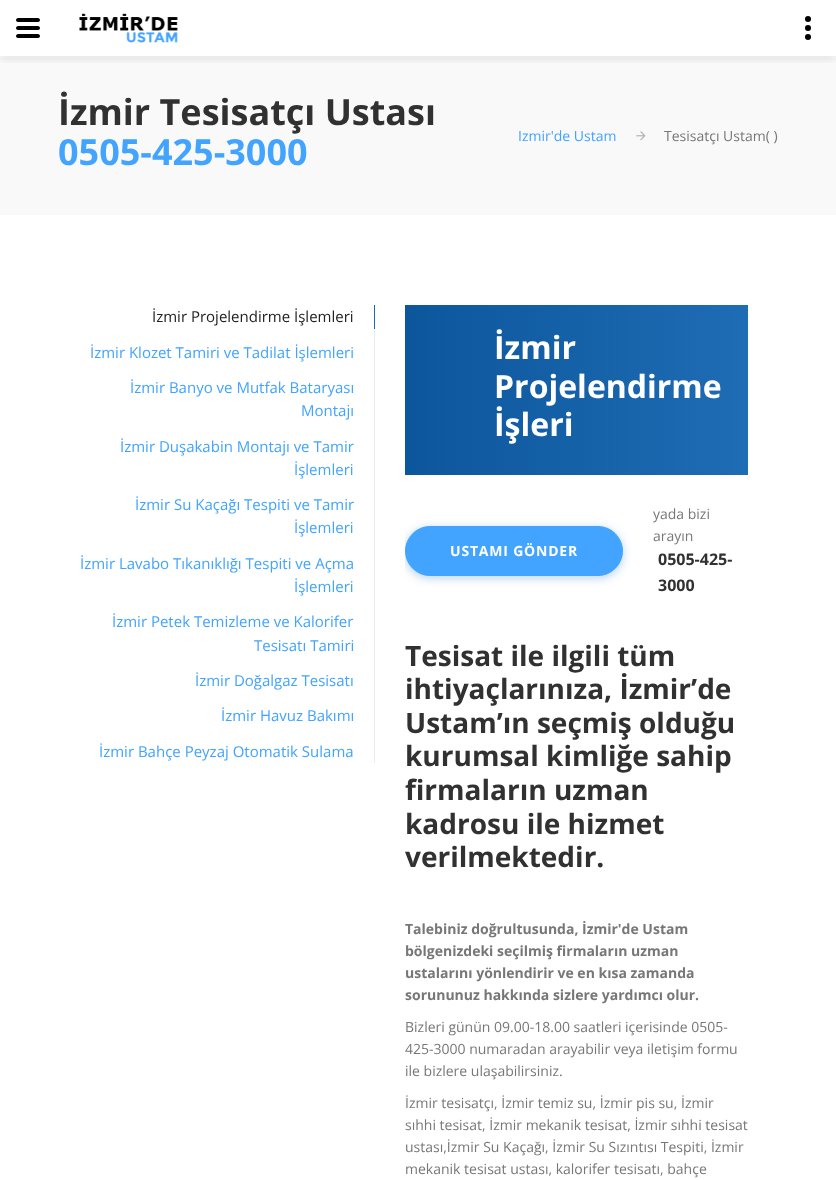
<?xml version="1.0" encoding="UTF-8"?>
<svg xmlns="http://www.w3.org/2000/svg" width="836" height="1180">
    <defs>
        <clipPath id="clip1"><rect x="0" y="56" width="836" height="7"/></clipPath>
        <filter id="blur1" x="-50%" y="-200%" width="200%" height="500%"><feGaussianBlur stdDeviation="5"/></filter>
        <linearGradient id="g1" gradientUnits="userSpaceOnUse" x1="405" y1="390" x2="758" y2="390"><stop offset="0" stop-color="#0C569C"/><stop offset="1" stop-color="#1F6DB5"/></linearGradient>
        <clipPath id="clip2"><rect x="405" y="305" width="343" height="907"/></clipPath>
    </defs>
    <rect width="100%" height="100%" fill="#FFFFFF"/>
    <rect x="0" y="56" width="836" height="159" fill="#F9F9F9"/>
    <g clip-path="url(#clip1)">
        <rect x="0" y="2" width="836" height="56" fill="#313132" fill-opacity="0.13" filter="url(#blur1)"/>
    </g>
    <path d="M 38 30 H 18 C 17 30 16 29 16 28 C 16 27 17 26 18 26 H 38 C 39 26 40 27 40 28 C 40 29 39 30 38 30 Z M 38 38 H 18 C 17 38 16 37 16 36 C 16 35 17 34 18 34 H 38 C 39 34 40 35 40 36 C 40 37 39 38 38 38 Z M 38 22 H 18 C 17 22 16 21 16 20 C 16 19 17 18 18 18 H 38 C 39 18 40 19 40 20 C 40 21 39 22 38 22 Z" fill="#000000"/>
    <image x="79" y="13" width="99" height="30" href="img_01.png"/>
    <circle cx="808" cy="28" r="3" fill="#000000"/>
    <circle cx="808" cy="19" r="3" fill="#000000"/>
    <circle cx="808" cy="37" r="3" fill="#000000"/>
    <text x="58" y="125" font-family="Open Sans" font-size="36" font-weight="700" fill="#313132">İzmir Tesisatçı Ustası</text>
    <text x="58" y="165" font-family="Open Sans" font-size="36" font-weight="700" fill="#42A4FF">0505-425-3000</text>
    <text x="518" y="141" font-family="Open Sans" font-size="14" fill="#42A4FF">Izmir'de Ustam</text>
    <image x="636" y="131" width="10" height="10" href="img_02.png"/>
    <text x="664" y="141" font-family="Open Sans" font-size="14" fill="#777777">Tesisatçı Ustam( )</text>
    <rect x="374" y="329" width="1" height="434" fill="#EBEBEB"/>
    <rect x="374" y="305" width="1" height="24" fill="#136CBF"/>
    <text x="152" y="322" font-family="Open Sans" font-size="15" fill="#222222">İzmir Projelendirme İşlemleri</text>
    <text x="90" y="358" font-family="Open Sans" font-size="15" fill="#42A4FF">İzmir Klozet Tamiri ve Tadilat İşlemleri</text>
    <text x="130" y="393" font-family="Open Sans" font-size="15" fill="#42A4FF">İzmir Banyo ve Mutfak Bataryası</text>
    <text x="301" y="416" font-family="Open Sans" font-size="15" fill="#42A4FF">Montajı</text>
    <text x="120" y="452" font-family="Open Sans" font-size="15" fill="#42A4FF">İzmir Duşakabin Montajı ve Tamir</text>
    <text x="294" y="475" font-family="Open Sans" font-size="15" fill="#42A4FF">İşlemleri</text>
    <text x="135" y="510" font-family="Open Sans" font-size="15" fill="#42A4FF">İzmir Su Kaçağı Tespiti ve Tamir</text>
    <text x="294" y="533" font-family="Open Sans" font-size="15" fill="#42A4FF">İşlemleri</text>
    <text x="80" y="569" font-family="Open Sans" font-size="15" fill="#42A4FF">İzmir Lavabo Tıkanıklığı Tespiti ve Açma</text>
    <text x="294" y="592" font-family="Open Sans" font-size="15" fill="#42A4FF">İşlemleri</text>
    <text x="112" y="627" font-family="Open Sans" font-size="15" fill="#42A4FF">İzmir Petek Temizleme ve Kalorifer</text>
    <text x="254" y="651" font-family="Open Sans" font-size="15" fill="#42A4FF">Tesisatı Tamiri</text>
    <text x="195" y="686" font-family="Open Sans" font-size="15" fill="#42A4FF">İzmir Doğalgaz Tesisatı</text>
    <text x="221" y="721" font-family="Open Sans" font-size="15" fill="#42A4FF">İzmir Havuz Bakımı</text>
    <text x="99" y="757" font-family="Open Sans" font-size="15" fill="#42A4FF">İzmir Bahçe Peyzaj Otomatik Sulama</text>
    <rect x="405" y="305" width="343" height="170" fill="url(#g1)"/>
    <text font-family="Open Sans" font-size="32" font-weight="700" fill="#FFFFFF">
        <tspan x="494" y="359">İzmir</tspan>
        <tspan x="494" y="398">Projelendirme</tspan>
        <tspan x="494" y="436">İşleri</tspan>
    </text>
    <g clip-path="url(#clip2)">
        <rect x="405" y="528" width="218" height="50" rx="25" fill="#136CBF" fill-opacity="0.31" filter="url(#blur1)"/>
    </g>
    <rect x="405.5" y="526.5" width="217" height="49" rx="24.5" fill="#42A4FF" stroke="#42A4FF"/>
    <text x="450" y="556" font-family="Open Sans" font-size="14" font-weight="700" letter-spacing="0.8" fill="#FFFFFF">USTAMI GÖNDER</text>
    <text font-family="Open Sans" font-size="14" fill="#777777">
        <tspan x="653" y="519">yada bizi</tspan>
        <tspan x="653" y="541">arayın</tspan>
    </text>
    <text font-family="Open Sans" font-size="16" font-weight="700" fill="#313132">
        <tspan x="658" y="565">0505-425-</tspan>
        <tspan x="658" y="591">3000</tspan>
    </text>
    <text font-family="Open Sans" font-size="28" font-weight="700" fill="#313132">
        <tspan x="405" y="666">Tesisat ile ilgili tüm</tspan>
        <tspan x="405" y="699">ihtiyaçlarınıza, İzmir’de</tspan>
        <tspan x="405" y="733">Ustam’ın seçmiş olduğu</tspan>
        <tspan x="405" y="766">kurumsal kimliğe sahip</tspan>
        <tspan x="405" y="800">firmaların uzman</tspan>
        <tspan x="405" y="834">kadrosu ile hizmet</tspan>
        <tspan x="405" y="867">verilmektedir.</tspan>
    </text>
    <text font-family="Open Sans" font-size="14" font-weight="700" fill="#777777">
        <tspan x="405" y="934">Talebiniz doğrultusunda, İzmir'de Ustam</tspan>
        <tspan x="405" y="956">bölgenizdeki seçilmiş firmaların uzman</tspan>
        <tspan x="405" y="978">ustalarını yönlendirir ve en kısa zamanda</tspan>
        <tspan x="405" y="1000">sorununuz hakkında sizlere yardımcı olur.</tspan>
    </text>
    <text font-family="Open Sans" font-size="14" fill="#777777">
        <tspan x="405" y="1032">Bizleri günün 09.00-18.00 saatleri içerisinde 0505-</tspan>
        <tspan x="405" y="1054">425-3000 numaradan arayabilir veya iletişim formu</tspan>
        <tspan x="405" y="1076">ile bizlere ulaşabilirsiniz.</tspan>
    </text>
    <text font-family="Open Sans" font-size="14" fill="#777777">
        <tspan x="405" y="1108">İzmir tesisatçı, İzmir temiz su, İzmir pis su, İzmir</tspan>
        <tspan x="405" y="1130">sıhhi tesisat, İzmir mekanik tesisat, İzmir sıhhi tesisat</tspan>
        <tspan x="405" y="1152">ustası,İzmir Su Kaçağı, İzmir Su Sızıntısı Tespiti, İzmir</tspan>
        <tspan x="405" y="1174">mekanik tesisat ustası, kalorifer tesisatı, bahçe</tspan>
    </text>
</svg>
